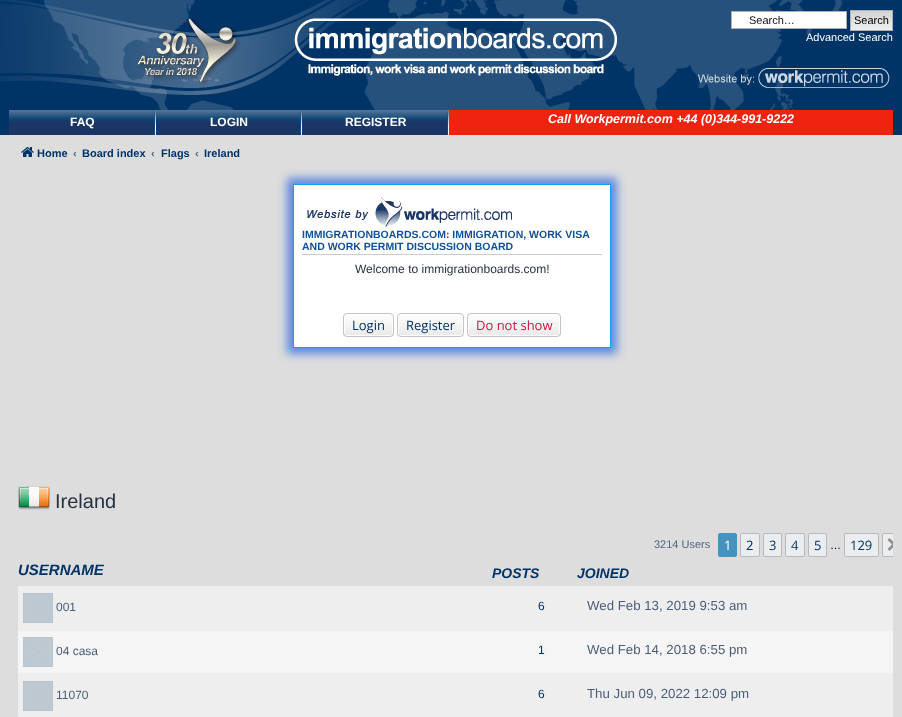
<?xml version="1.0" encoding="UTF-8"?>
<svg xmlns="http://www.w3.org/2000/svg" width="902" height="717">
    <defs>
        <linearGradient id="g1" gradientUnits="userSpaceOnUse" x1="872" y1="11" x2="872" y2="30"><stop offset="0" stop-color="#D2D2D2"/><stop offset="1" stop-color="#EFEFEF"/></linearGradient>
        <clipPath id="clip1"><rect x="9" y="175" width="884" height="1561"/></clipPath>
        <filter id="blur1" x="-50%" y="-200%" width="200%" height="500%"><feGaussianBlur stdDeviation="5"/></filter>
        <clipPath id="clip2"><rect x="343" y="313" width="51" height="24" rx="4"/></clipPath>
        <linearGradient id="g2" gradientUnits="userSpaceOnUse" x1="369" y1="314" x2="369" y2="336"><stop offset="0" stop-color="#FFFFFF"/><stop offset="1" stop-color="#E9E9E9"/></linearGradient>
        <clipPath id="clip3"><rect x="397" y="313" width="67" height="24" rx="4"/></clipPath>
        <linearGradient id="g3" gradientUnits="userSpaceOnUse" x1="431" y1="314" x2="431" y2="336"><stop offset="0" stop-color="#FFFFFF"/><stop offset="1" stop-color="#E9E9E9"/></linearGradient>
        <clipPath id="clip4"><rect x="467" y="313" width="94" height="24" rx="4"/></clipPath>
        <linearGradient id="g4" gradientUnits="userSpaceOnUse" x1="514" y1="314" x2="514" y2="336"><stop offset="0" stop-color="#FFFFFF"/><stop offset="1" stop-color="#E9E9E9"/></linearGradient>
    </defs>
    <rect width="100%" height="100%" fill="#DDDDDD"/>
    <rect x="0" y="0" width="902" height="135" fill="#003366"/>
    <image x="43" y="0" width="800" height="110" href="img_01.png"/>
    <image x="0" y="0" width="370" height="95" href="img_02.png"/>
    <image x="294" y="18" width="323" height="58" href="img_03.png"/>
    <rect x="731.5" y="11.5" width="115" height="17" fill="#FFFFFF" stroke="#B0B0B0"/>
    <text x="749" y="24" font-family="Liberation Sans" font-size="11" fill="#111111">Search…</text>
    <rect x="851" y="11" width="41" height="19" fill="url(#g1)"/>
    <rect x="850.5" y="10.5" width="42" height="20" fill="none" stroke="#B0B0B0"/>
    <text x="854" y="24" font-family="Liberation Sans" font-size="11" fill="#000000">Search</text>
    <text x="806" y="41" font-family="Liberation Sans" font-size="11" fill="#FFFFFF">Advanced Search</text>
    <image x="698" y="68" width="192" height="20" href="img_04.png"/>
    <image x="9" y="110" width="147" height="25" href="img_05.png"/>
    <image x="154" y="110" width="2" height="25" href="img_06.png"/>
    <text x="70" y="126" font-family="Liberation Sans" font-size="12" font-weight="700" fill="#FFFFFF">FAQ</text>
    <image x="156" y="110" width="146" height="25" href="img_07.png"/>
    <image x="300" y="110" width="2" height="25" href="img_06.png"/>
    <text x="210" y="126" font-family="Liberation Sans" font-size="12" font-weight="700" fill="#FFFFFF">LOGIN</text>
    <image x="302" y="110" width="147" height="25" href="img_05.png"/>
    <image x="447" y="110" width="2" height="25" href="img_06.png"/>
    <text x="345" y="126" font-family="Liberation Sans" font-size="12" font-weight="700" fill="#FFFFFF">REGISTER</text>
    <rect x="449" y="110" width="444" height="25" fill="#F02311"/>
    <text x="548" y="123" font-family="Liberation Sans" font-size="12.5" font-weight="700" font-style="italic" fill="#FFFFFF">Call Workpermit.com +44 (0)344-991-9222</text>
    <image x="21" y="147" width="13" height="10" href="img_08.png"/>
    <text x="37" y="157" font-family="Liberation Sans" font-size="11" font-weight="700" fill="#003366">Home</text>
    <text x="73" y="157" font-family="Liberation Sans" font-size="11" font-weight="700" fill="#536482">‹</text>
    <text x="82" y="157" font-family="Liberation Sans" font-size="11" font-weight="700" fill="#003366">Board index</text>
    <text x="151" y="157" font-family="Liberation Sans" font-size="11" font-weight="700" fill="#536482">‹</text>
    <text x="161" y="157" font-family="Liberation Sans" font-size="11" font-weight="700" fill="#003366">Flags</text>
    <text x="195" y="157" font-family="Liberation Sans" font-size="11" font-weight="700" fill="#536482">‹</text>
    <text x="204" y="157" font-family="Liberation Sans" font-size="11" font-weight="700" fill="#003366">Ireland</text>
    <image x="18" y="486" width="32" height="24" href="img_09.png"/>
    <text x="55" y="508" font-family="Liberation Sans" font-size="20" fill="#28313F">Ireland</text>
    <text x="654" y="548" font-family="Liberation Sans" font-size="11" fill="#536482">3214 Users</text>
    <rect x="718.5" y="533.5" width="18" height="23" rx="1.5" fill="#4692BF" stroke="#4692BF"/>
    <text x="724" y="550" font-family="Open Sans" font-size="13" fill="#FFFFFF">1</text>
    <rect x="740.5" y="533.5" width="19" height="23" rx="1.5" fill="#ECEDEE" stroke="#B4BAC0"/>
    <text x="746" y="550" font-family="Open Sans" font-size="13" fill="#003366">2</text>
    <rect x="763.5" y="533.5" width="18" height="23" rx="1.5" fill="#ECEDEE" stroke="#B4BAC0"/>
    <text x="769" y="550" font-family="Open Sans" font-size="13" fill="#003366">3</text>
    <rect x="785.5" y="533.5" width="19" height="23" rx="1.5" fill="#ECEDEE" stroke="#B4BAC0"/>
    <text x="791" y="550" font-family="Open Sans" font-size="13" fill="#003366">4</text>
    <rect x="808.5" y="533.5" width="18" height="23" rx="1.5" fill="#ECEDEE" stroke="#B4BAC0"/>
    <text x="814" y="550" font-family="Open Sans" font-size="13" fill="#003366">5</text>
    <text x="830" y="549" font-family="Liberation Sans" font-size="11" fill="#000000">…</text>
    <rect x="844.5" y="533.5" width="34" height="23" rx="1.5" fill="#ECEDEE" stroke="#B4BAC0"/>
    <text x="850" y="550" font-family="Open Sans" font-size="13" fill="#003366">129</text>
    <path d="M 884 533 H 893 V 557 H 884 C 883 557 882 556 882 555 V 535 C 882 534 883 533 884 533 Z" fill="#ECEDEE"/>
    <g clip-path="url(#clip1)">
        <rect x="882.5" y="533.5" width="19" height="23" rx="1.5" fill="none" stroke="#B4BAC0"/>
    </g>
    <image x="887" y="538" width="6" height="13" href="img_10.png"/>
    <text x="18" y="575" font-family="Liberation Sans" font-size="15" font-weight="700" font-style="italic" fill="#003366">USERNAME</text>
    <text x="492" y="578" font-family="Liberation Sans" font-size="14" font-weight="700" font-style="italic" fill="#003366">POSTS</text>
    <text x="577" y="578" font-family="Liberation Sans" font-size="14" font-weight="700" font-style="italic" fill="#003366">JOINED</text>
    <rect x="18" y="586" width="875" height="45" fill="#EEEEEE"/>
    <image x="23" y="593" width="30" height="30" href="img_11.png"/>
    <text x="56" y="611" font-family="Liberation Sans" font-size="12" fill="#4C5D77">001</text>
    <text x="538" y="610" font-family="Liberation Sans" font-size="12" fill="#003366">6</text>
    <text x="587" y="610" font-family="Liberation Sans" font-size="13.25" fill="#4C5D77">Wed Feb 13, 2019 9:53 am</text>
    <rect x="18" y="631" width="875" height="42" fill="#F5F5F5"/>
    <rect x="18" y="673" width="875" height="44" fill="#EEEEEE"/>
    <image x="23" y="637" width="30" height="30" href="img_11.png"/>
    <text x="56" y="655" font-family="Liberation Sans" font-size="12" fill="#4C5D77">04 casa</text>
    <text x="538" y="654" font-family="Liberation Sans" font-size="12" fill="#003366">1</text>
    <text x="587" y="654" font-family="Liberation Sans" font-size="13.25" fill="#4C5D77">Wed Feb 14, 2018 6:55 pm</text>
    <image x="23" y="681" width="30" height="30" href="img_11.png"/>
    <text x="56" y="699" font-family="Liberation Sans" font-size="12" fill="#4C5D77">11070</text>
    <text x="538" y="698" font-family="Liberation Sans" font-size="12" fill="#003366">6</text>
    <text x="587" y="698" font-family="Liberation Sans" font-size="13.25" fill="#4C5D77">Thu Jun 09, 2022 12:09 pm</text>
    <rect x="287" y="178" width="330" height="176" fill="#064AE4" fill-opacity="0.58" filter="url(#blur1)"/>
    <rect x="293.5" y="184.5" width="317" height="163" fill="#FFFFFF" stroke="#109FE5"/>
    <rect x="302" y="254" width="300" height="1" fill="#CCCCCC"/>
    <image x="307" y="197" width="205" height="30" href="img_12.png"/>
    <text font-family="Liberation Sans" font-size="10.5" font-weight="700" fill="#115098">
        <tspan x="302" y="238">IMMIGRATIONBOARDS.COM: IMMIGRATION, WORK VISA</tspan>
        <tspan x="302" y="250">AND WORK PERMIT DISCUSSION BOARD</tspan>
    </text>
    <text x="355" y="273" font-family="Liberation Sans" font-size="12" fill="#28313F">Welcome to immigrationboards.com!</text>
    <g clip-path="url(#clip2)">
        <rect x="343" y="314" width="51" height="22" fill="url(#g2)"/>
    </g>
    <rect x="344.5" y="314.5" width="48" height="21" rx="2.5" fill="none" stroke="#FFFFFF"/>
    <rect x="343.5" y="313.5" width="50" height="23" rx="3.5" fill="none" stroke="#C7C3BF"/>
    <text x="352" y="330" font-family="Open Sans" font-size="13" fill="#003366">Login</text>
    <g clip-path="url(#clip3)">
        <rect x="397" y="314" width="67" height="22" fill="url(#g3)"/>
    </g>
    <rect x="398.5" y="314.5" width="64" height="21" rx="2.5" fill="none" stroke="#FFFFFF"/>
    <rect x="397.5" y="313.5" width="66" height="23" rx="3.5" fill="none" stroke="#C7C3BF"/>
    <text x="406" y="330" font-family="Open Sans" font-size="13" fill="#003366">Register</text>
    <g clip-path="url(#clip4)">
        <rect x="467" y="314" width="94" height="22" fill="url(#g4)"/>
    </g>
    <rect x="468.5" y="314.5" width="91" height="21" rx="2.5" fill="none" stroke="#FFFFFF"/>
    <rect x="467.5" y="313.5" width="93" height="23" rx="3.5" fill="none" stroke="#C7C3BF"/>
    <text x="476" y="330" font-family="Open Sans" font-size="13" fill="#D31141">Do not show</text>
</svg>
